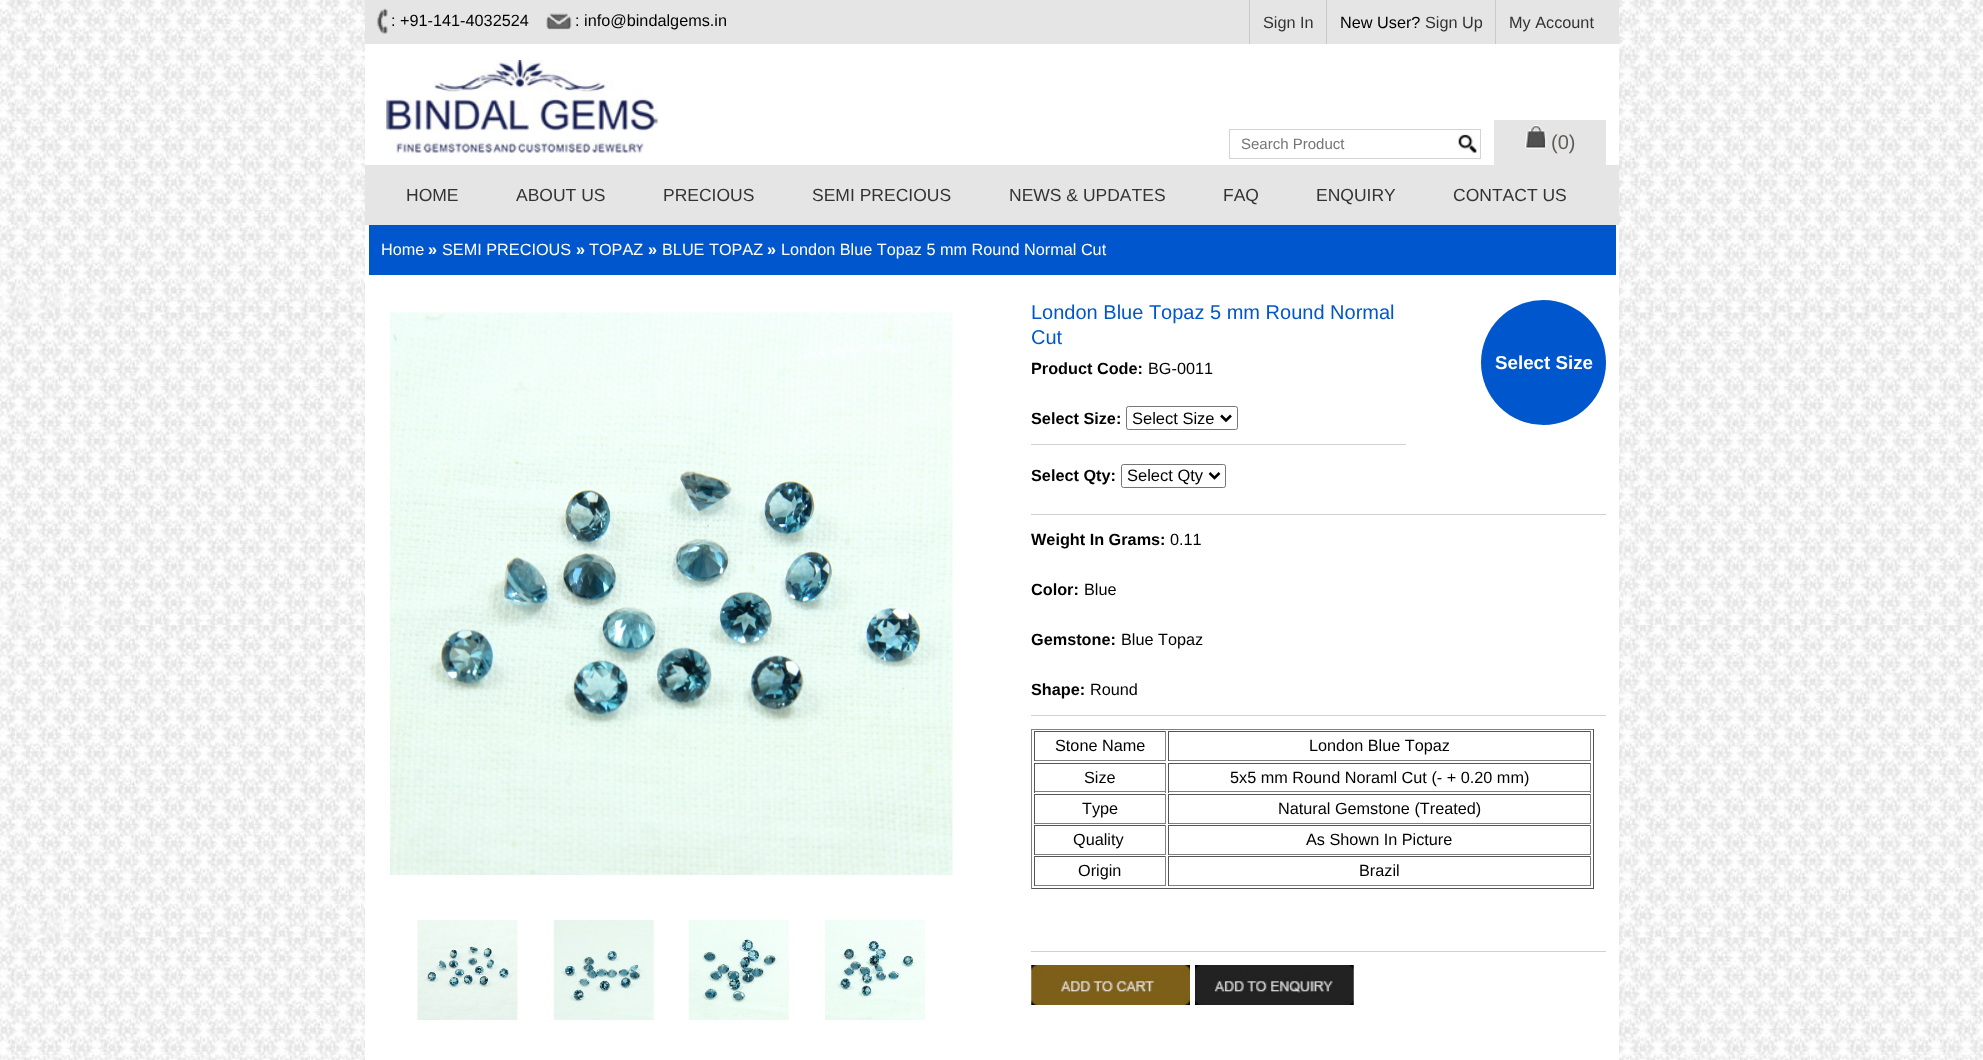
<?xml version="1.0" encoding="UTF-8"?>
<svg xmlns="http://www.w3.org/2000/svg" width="1983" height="1060">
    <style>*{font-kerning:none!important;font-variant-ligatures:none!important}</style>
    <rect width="100%" height="100%" fill="#FFFFFF"/>
    <image x="0" y="0" width="1983" height="1060" href="img_01.png"/>
    <rect x="365" y="44" width="1254" height="121" fill="#FFFFFF"/>
    <rect x="365" y="0" width="1254" height="44" fill="#E5E5E5"/>
    <image x="377" y="8" width="11" height="26" href="img_02.png"/>
    <text x="391" y="26" font-family="Liberation Sans" font-size="16.25" fill="#000000">: +91-141-4032524</text>
    <image x="546" y="13" width="26" height="17" href="img_03.png"/>
    <text x="575" y="26" font-family="Liberation Sans" font-size="16.25" fill="#000000">: info@bindalgems.in</text>
    <rect x="1249" y="0" width="1" height="44" fill="#CACACA"/>
    <text x="1263" y="28" font-family="Liberation Sans" font-size="16.25" fill="#333333">Sign In</text>
    <rect x="1326" y="0" width="1" height="44" fill="#CACACA"/>
    <text x="1340" y="28" font-family="Liberation Sans" font-size="16.25" fill="#000000">New User?</text>
    <text x="1425" y="28" font-family="Liberation Sans" font-size="16.25" fill="#333333">Sign Up</text>
    <rect x="1495" y="0" width="1" height="44" fill="#CACACA"/>
    <text x="1509" y="28" font-family="Liberation Sans" font-size="16.25" fill="#333333">My Account</text>
    <image x="384" y="60" width="275" height="93" href="img_04.png"/>
    <rect x="1229.5" y="129.5" width="251" height="29" fill="none" stroke="#D3D3D3"/>
    <text x="1241" y="149" font-family="Liberation Sans" font-size="15" fill="#757575">Search Product</text>
    <image x="1458" y="134" width="19" height="19" href="img_05.png"/>
    <rect x="1494" y="120" width="112" height="45" fill="#E5E5E5"/>
    <image x="1525" y="125" width="22" height="24" href="img_06.png"/>
    <text x="1551" y="149" font-family="Liberation Sans" font-size="20" fill="#605B57">(0)</text>
    <rect x="365" y="165" width="1254" height="60" fill="#E5E5E5"/>
    <text x="406" y="201" font-family="Liberation Sans" font-size="17.5" fill="#333333">HOME</text>
    <text x="516" y="201" font-family="Liberation Sans" font-size="17.5" fill="#333333">ABOUT US</text>
    <text x="663" y="201" font-family="Liberation Sans" font-size="17.5" fill="#333333">PRECIOUS</text>
    <text x="812" y="201" font-family="Liberation Sans" font-size="17.5" fill="#333333">SEMI PRECIOUS</text>
    <text x="1009" y="201" font-family="Liberation Sans" font-size="17.5" fill="#333333">NEWS &amp; UPDATES</text>
    <text x="1223" y="201" font-family="Liberation Sans" font-size="17.5" fill="#333333">FAQ</text>
    <text x="1316" y="201" font-family="Liberation Sans" font-size="17.5" fill="#333333">ENQUIRY</text>
    <text x="1453" y="201" font-family="Liberation Sans" font-size="17.5" fill="#333333">CONTACT US</text>
    <rect x="365" y="225" width="1254" height="835" fill="#FFFFFF"/>
    <rect x="369" y="225" width="1247" height="50" fill="#0057CD"/>
    <text x="381" y="255" font-family="Liberation Sans" font-size="16.25" fill="#FFFFFF">Home</text>
    <text x="428" y="255" font-family="Liberation Sans" font-size="16.25" font-weight="700" fill="#FFFFFF">»</text>
    <text x="442" y="255" font-family="Liberation Sans" font-size="16.25" fill="#FFFFFF">SEMI PRECIOUS</text>
    <text x="576" y="255" font-family="Liberation Sans" font-size="16.25" font-weight="700" fill="#FFFFFF">»</text>
    <text x="589" y="255" font-family="Liberation Sans" font-size="16.25" fill="#FFFFFF">TOPAZ</text>
    <text x="648" y="255" font-family="Liberation Sans" font-size="16.25" font-weight="700" fill="#FFFFFF">»</text>
    <text x="662" y="255" font-family="Liberation Sans" font-size="16.25" fill="#FFFFFF">BLUE TOPAZ</text>
    <text x="767" y="255" font-family="Liberation Sans" font-size="16.25" font-weight="700" fill="#FFFFFF">»</text>
    <text x="781" y="255" font-family="Liberation Sans" font-size="16.25" fill="#FFFFFF">London Blue Topaz 5 mm Round Normal Cut</text>
    <image x="390" y="312" width="563" height="563" href="img_07.png"/>
    <image x="417" y="920" width="101" height="100" href="img_08.png"/>
    <image x="553" y="920" width="101" height="100" href="img_09.png"/>
    <image x="688" y="920" width="101" height="100" href="img_10.png"/>
    <image x="825" y="920" width="100" height="100" href="img_11.png"/>
    <text font-family="Liberation Sans" font-size="20" fill="#0057CD">
        <tspan x="1031" y="319">London Blue Topaz 5 mm Round Normal</tspan>
        <tspan x="1031" y="344">Cut</tspan>
    </text>
    <text x="1031" y="374" font-family="Liberation Sans" font-size="16.25" font-weight="700" fill="#000000">Product Code:</text>
    <text x="1148" y="374" font-family="Liberation Sans" font-size="16.25" fill="#000000">BG-0011</text>
    <text x="1031" y="424" font-family="Liberation Sans" font-size="16.25" font-weight="700" fill="#000000">Select Size:</text>
    <rect x="1126.5" y="406.5" width="111" height="23" rx="2" fill="none" stroke="#767676"/>
    <path d="M 1221 415.5 L 1226 420.5 L 1231 415.5" fill="none" stroke="#000000" stroke-width="2.5"/>
    <text x="1132" y="424" font-family="Liberation Sans" font-size="16.5" fill="#000000">Select Size</text>
    <rect x="1031" y="444" width="375" height="1" fill="#D1D1D1"/>
    <text x="1031" y="481" font-family="Liberation Sans" font-size="16.25" font-weight="700" fill="#000000">Select Qty:</text>
    <rect x="1121.5" y="464.5" width="104" height="23" rx="2" fill="none" stroke="#767676"/>
    <path d="M 1209.5 473 L 1214.5 478 L 1219.5 473" fill="none" stroke="#000000" stroke-width="2.5"/>
    <text x="1127" y="481" font-family="Liberation Sans" font-size="16.5" fill="#000000">Select Qty</text>
    <circle cx="1543.5" cy="362.5" r="62.5" fill="#0057CD"/>
    <text x="1495" y="369" font-family="Liberation Sans" font-size="18.75" font-weight="700" fill="#FFFFFF">Select Size</text>
    <rect x="1031" y="514" width="575" height="1" fill="#D1D1D1"/>
    <text x="1031" y="545" font-family="Liberation Sans" font-size="16.25" font-weight="700" fill="#000000">Weight In Grams:</text>
    <text x="1170" y="545" font-family="Liberation Sans" font-size="16.25" fill="#000000">0.11</text>
    <text x="1031" y="595" font-family="Liberation Sans" font-size="16.25" font-weight="700" fill="#000000">Color:</text>
    <text x="1084" y="595" font-family="Liberation Sans" font-size="16.25" fill="#000000">Blue</text>
    <text x="1031" y="645" font-family="Liberation Sans" font-size="16.25" font-weight="700" fill="#000000">Gemstone:</text>
    <text x="1121" y="645" font-family="Liberation Sans" font-size="16.25" fill="#000000">Blue Topaz</text>
    <text x="1031" y="695" font-family="Liberation Sans" font-size="16.25" font-weight="700" fill="#000000">Shape:</text>
    <text x="1090" y="695" font-family="Liberation Sans" font-size="16.25" fill="#000000">Round</text>
    <rect x="1031" y="715" width="575" height="1" fill="#D1D1D1"/>
    <rect x="1031" y="729" width="563" height="1" fill="#808080"/>
    <rect x="1593" y="729" width="1" height="160" fill="#555555"/>
    <rect x="1031" y="888" width="563" height="1" fill="#555555"/>
    <rect x="1031" y="729" width="1" height="160" fill="#808080"/>
    <rect x="1034" y="731" width="132" height="1" fill="#555555"/>
    <rect x="1165" y="731" width="1" height="30" fill="#808080"/>
    <rect x="1034" y="760" width="132" height="1" fill="#808080"/>
    <rect x="1034" y="731" width="1" height="30" fill="#555555"/>
    <text x="1055" y="751" font-family="Liberation Sans" font-size="16.25" fill="#000000">Stone Name</text>
    <rect x="1168" y="731" width="423" height="1" fill="#555555"/>
    <rect x="1590" y="731" width="1" height="30" fill="#808080"/>
    <rect x="1168" y="760" width="423" height="1" fill="#808080"/>
    <rect x="1168" y="731" width="1" height="30" fill="#555555"/>
    <text x="1309" y="751" font-family="Liberation Sans" font-size="16.25" fill="#000000">London Blue Topaz</text>
    <rect x="1034" y="763" width="132" height="1" fill="#555555"/>
    <rect x="1165" y="763" width="1" height="30" fill="#808080"/>
    <rect x="1034" y="791" width="132" height="1" fill="#808080"/>
    <rect x="1034" y="763" width="1" height="30" fill="#555555"/>
    <text x="1084" y="783" font-family="Liberation Sans" font-size="16.25" fill="#000000">Size</text>
    <rect x="1168" y="763" width="423" height="1" fill="#555555"/>
    <rect x="1590" y="763" width="1" height="30" fill="#808080"/>
    <rect x="1168" y="791" width="423" height="1" fill="#808080"/>
    <rect x="1168" y="763" width="1" height="30" fill="#555555"/>
    <text x="1230" y="783" font-family="Liberation Sans" font-size="16.25" fill="#000000">5x5 mm Round Noraml Cut (- + 0.20 mm)</text>
    <rect x="1034" y="794" width="132" height="1" fill="#555555"/>
    <rect x="1165" y="794" width="1" height="30" fill="#808080"/>
    <rect x="1034" y="823" width="132" height="1" fill="#808080"/>
    <rect x="1034" y="794" width="1" height="30" fill="#555555"/>
    <text x="1082" y="814" font-family="Liberation Sans" font-size="16.25" fill="#000000">Type</text>
    <rect x="1168" y="794" width="423" height="1" fill="#555555"/>
    <rect x="1590" y="794" width="1" height="30" fill="#808080"/>
    <rect x="1168" y="823" width="423" height="1" fill="#808080"/>
    <rect x="1168" y="794" width="1" height="30" fill="#555555"/>
    <text x="1278" y="814" font-family="Liberation Sans" font-size="16.25" fill="#000000">Natural Gemstone (Treated)</text>
    <rect x="1034" y="825" width="132" height="1" fill="#555555"/>
    <rect x="1165" y="825" width="1" height="30" fill="#808080"/>
    <rect x="1034" y="854" width="132" height="1" fill="#808080"/>
    <rect x="1034" y="825" width="1" height="30" fill="#555555"/>
    <text x="1073" y="845" font-family="Liberation Sans" font-size="16.25" fill="#000000">Quality</text>
    <rect x="1168" y="825" width="423" height="1" fill="#555555"/>
    <rect x="1590" y="825" width="1" height="30" fill="#808080"/>
    <rect x="1168" y="854" width="423" height="1" fill="#808080"/>
    <rect x="1168" y="825" width="1" height="30" fill="#555555"/>
    <text x="1306" y="845" font-family="Liberation Sans" font-size="16.25" fill="#000000">As Shown In Picture</text>
    <rect x="1034" y="856" width="132" height="1" fill="#555555"/>
    <rect x="1165" y="856" width="1" height="30" fill="#808080"/>
    <rect x="1034" y="885" width="132" height="1" fill="#808080"/>
    <rect x="1034" y="856" width="1" height="30" fill="#555555"/>
    <text x="1078" y="876" font-family="Liberation Sans" font-size="16.25" fill="#000000">Origin</text>
    <rect x="1168" y="856" width="423" height="1" fill="#555555"/>
    <rect x="1590" y="856" width="1" height="30" fill="#808080"/>
    <rect x="1168" y="885" width="423" height="1" fill="#808080"/>
    <rect x="1168" y="856" width="1" height="30" fill="#555555"/>
    <text x="1359" y="876" font-family="Liberation Sans" font-size="16.25" fill="#000000">Brazil</text>
    <rect x="1031" y="951" width="575" height="1" fill="#D1D1D1"/>
    <image x="1031" y="965" width="159" height="40" href="img_12.png"/>
    <image x="1195" y="965" width="159" height="40" href="img_13.png"/>
</svg>
